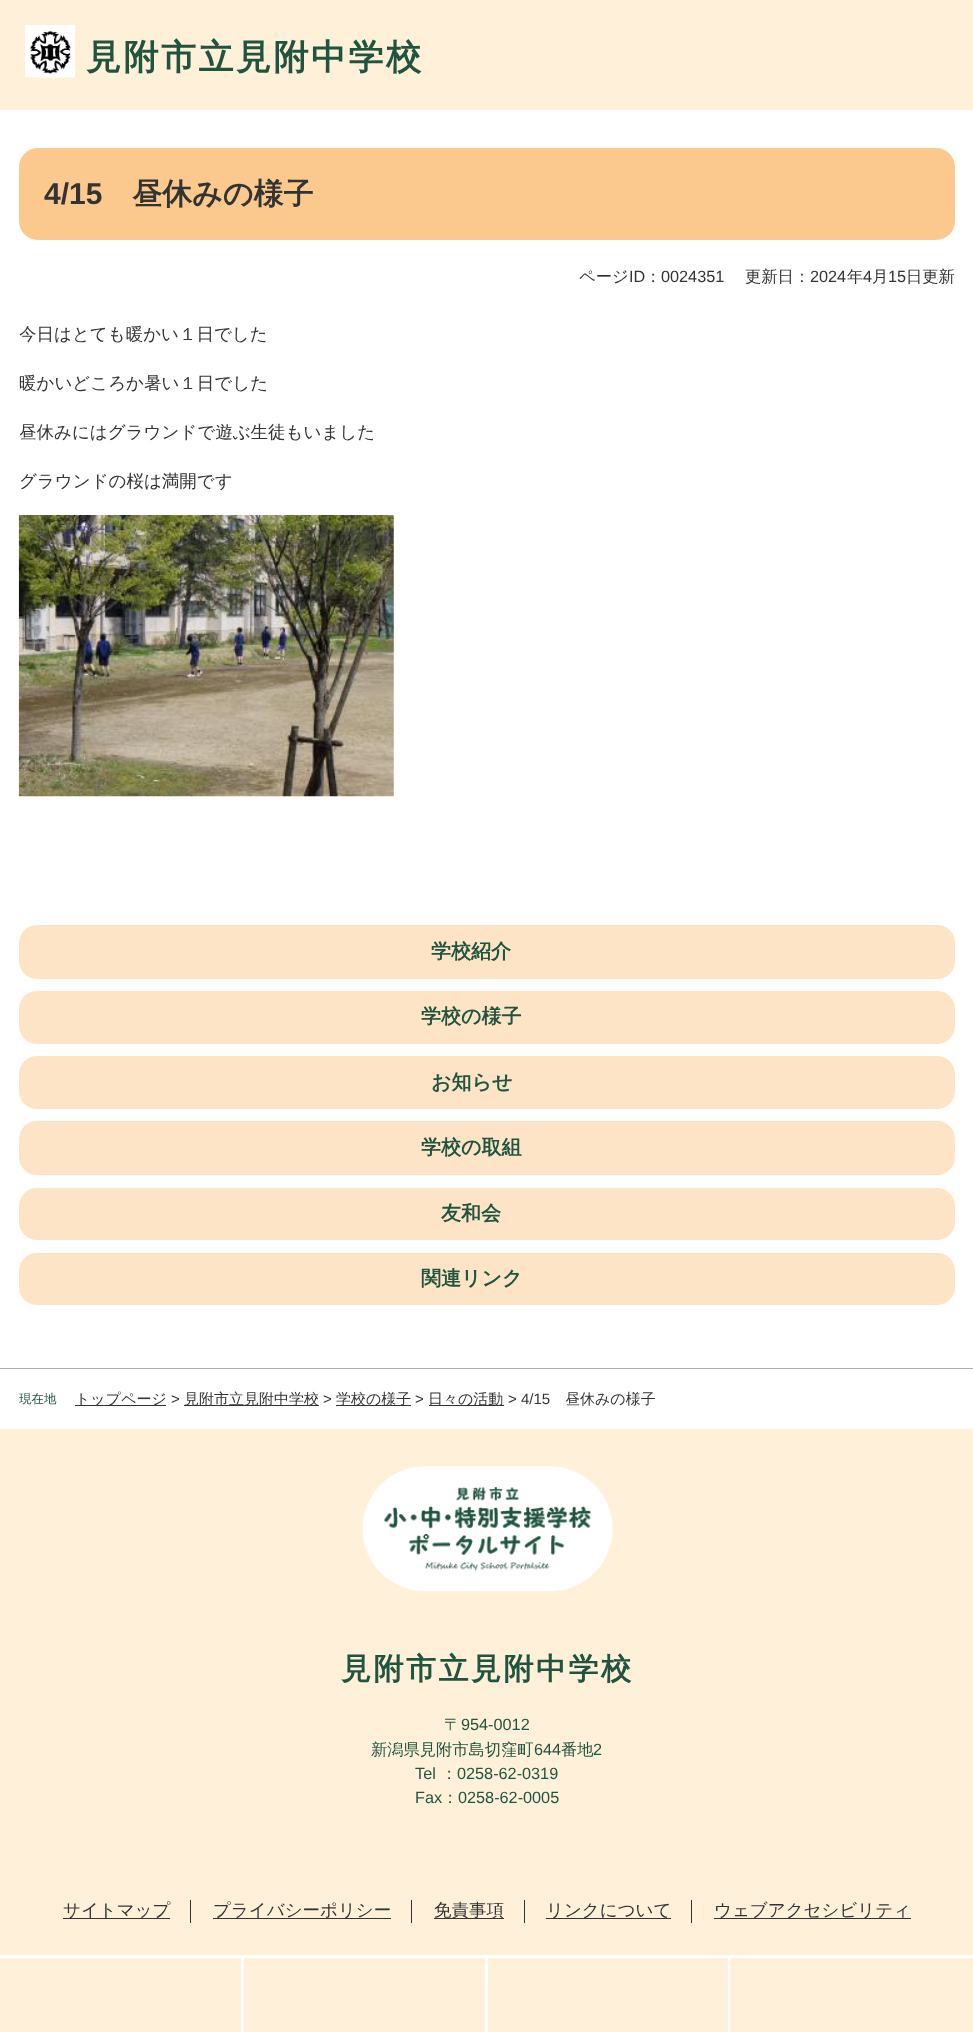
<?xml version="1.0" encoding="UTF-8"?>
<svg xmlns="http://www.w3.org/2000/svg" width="973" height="2032">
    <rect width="100%" height="100%" fill="#FFFFFF"/>
    <rect x="0" y="0" width="973" height="110" fill="#FFF0D9"/>
    <image x="25" y="25" width="50" height="53" href="img_01.png"/>
    <text x="86" y="69" font-family="WenQuanYi Zen Hei" font-size="35" font-weight="700" letter-spacing="2.5" fill="#20543F">見附市立見附中学校</text>
    <rect x="0" y="1429" width="973" height="603" fill="#FFF0D9"/>
    <rect x="0" y="1955" width="973" height="3" fill="#FFFFFF"/>
    <rect x="241" y="1955" width="3" height="77" fill="#FFFFFF"/>
    <rect x="485" y="1955" width="3" height="77" fill="#FFFFFF"/>
    <rect x="728" y="1955" width="2" height="77" fill="#FFFFFF"/>
    <rect x="19" y="148" width="936" height="92" rx="19" fill="#FBC98E"/>
    <text x="44" y="204" font-family="Liberation Sans" font-size="30" font-weight="700" fill="#333333">4/15</text>
    <text x="132" y="204" font-family="WenQuanYi Zen Hei" font-size="30" font-weight="700" fill="#333333">昼休みの様子</text>
    <text x="579" y="282" font-family="WenQuanYi Zen Hei" font-size="16.25" font-weight="500" fill="#333333">ページ</text>
    <text x="629" y="282" font-family="Liberation Sans" font-size="16.25" fill="#333333">ID</text>
    <text x="645" y="282" font-family="WenQuanYi Zen Hei" font-size="16.25" font-weight="500" fill="#333333">：</text>
    <text x="661" y="282" font-family="Liberation Sans" font-size="16.25" fill="#333333">0024351</text>
    <text x="745" y="282" font-family="WenQuanYi Zen Hei" font-size="16.25" font-weight="500" fill="#333333">更新日：</text>
    <text x="810" y="282" font-family="Liberation Sans" font-size="16.25" fill="#333333">2024</text>
    <text x="847" y="282" font-family="WenQuanYi Zen Hei" font-size="16.25" font-weight="500" fill="#333333">年</text>
    <text x="863" y="282" font-family="Liberation Sans" font-size="16.25" fill="#333333">4</text>
    <text x="872" y="282" font-family="WenQuanYi Zen Hei" font-size="16.25" font-weight="500" fill="#333333">月</text>
    <text x="888" y="282" font-family="Liberation Sans" font-size="16.25" fill="#333333">15</text>
    <text x="906" y="282" font-family="WenQuanYi Zen Hei" font-size="16.25" font-weight="500" fill="#333333">日更新</text>
    <text x="19" y="340" font-family="WenQuanYi Zen Hei" font-size="17.5" font-weight="500" fill="#333333">今日はとても暖かい１日でした</text>
    <text x="19" y="389" font-family="WenQuanYi Zen Hei" font-size="17.5" font-weight="500" fill="#333333">暖かいどころか暑い１日でした</text>
    <text x="19" y="438" font-family="WenQuanYi Zen Hei" font-size="17.5" font-weight="500" fill="#333333">昼休みにはグラウンドで遊ぶ生徒もいました</text>
    <text x="19" y="487" font-family="WenQuanYi Zen Hei" font-size="17.5" font-weight="500" fill="#333333">グラウンドの桜は満開です</text>
    <image x="18" y="515" width="376" height="282" href="img_02.png"/>
    <rect x="19" y="925" width="936" height="54" rx="18" fill="#FDE4C6"/>
    <text x="431" y="958" font-family="WenQuanYi Zen Hei" font-size="20" font-weight="700" fill="#20543F">学校紹介</text>
    <rect x="19" y="991" width="936" height="53" rx="18" fill="#FDE4C6"/>
    <text x="421" y="1023" font-family="WenQuanYi Zen Hei" font-size="20" font-weight="700" fill="#20543F">学校の様子</text>
    <rect x="19" y="1056" width="936" height="53" rx="18" fill="#FDE4C6"/>
    <text x="431" y="1089" font-family="WenQuanYi Zen Hei" font-size="20" font-weight="700" fill="#20543F">お知らせ</text>
    <rect x="19" y="1121" width="936" height="54" rx="18" fill="#FDE4C6"/>
    <text x="421" y="1154" font-family="WenQuanYi Zen Hei" font-size="20" font-weight="700" fill="#20543F">学校の取組</text>
    <rect x="19" y="1188" width="936" height="52" rx="18" fill="#FDE4C6"/>
    <text x="441" y="1220" font-family="WenQuanYi Zen Hei" font-size="20" font-weight="700" fill="#20543F">友和会</text>
    <rect x="19" y="1253" width="936" height="52" rx="18" fill="#FDE4C6"/>
    <text x="421" y="1285" font-family="WenQuanYi Zen Hei" font-size="20" font-weight="700" fill="#20543F">関連リンク</text>
    <rect x="0" y="1368" width="973" height="1" fill="#ACACAC"/>
    <text x="19" y="1403" font-family="WenQuanYi Zen Hei" font-size="12.5" font-weight="500" fill="#20543F">現在地</text>
    <rect x="75" y="1405" width="91" height="1" fill="#333333"/>
    <text x="75" y="1404" font-family="WenQuanYi Zen Hei" font-size="15" font-weight="500" fill="#333333">トップページ</text>
    <text x="171" y="1404" font-family="Liberation Sans" font-size="15" fill="#333333">&gt;</text>
    <rect x="184" y="1405" width="135" height="1" fill="#333333"/>
    <text x="184" y="1404" font-family="WenQuanYi Zen Hei" font-size="15" font-weight="500" fill="#333333">見附市立見附中学校</text>
    <text x="323" y="1404" font-family="Liberation Sans" font-size="15" fill="#333333">&gt;</text>
    <rect x="336" y="1405" width="75" height="1" fill="#333333"/>
    <text x="336" y="1404" font-family="WenQuanYi Zen Hei" font-size="15" font-weight="500" fill="#333333">学校の様子</text>
    <text x="415" y="1404" font-family="Liberation Sans" font-size="15" fill="#333333">&gt;</text>
    <rect x="429" y="1405" width="75" height="1" fill="#333333"/>
    <text x="428" y="1404" font-family="WenQuanYi Zen Hei" font-size="15" font-weight="500" fill="#333333">日々の活動</text>
    <text x="508" y="1404" font-family="Liberation Sans" font-size="15" fill="#333333">&gt; 4/15</text>
    <text x="565" y="1404" font-family="WenQuanYi Zen Hei" font-size="15" font-weight="500" fill="#333333">昼休みの様子</text>
    <image x="362" y="1466" width="251" height="126" href="img_03.png"/>
    <text x="341" y="1679" font-family="WenQuanYi Zen Hei" font-size="30" font-weight="700" letter-spacing="2.5" fill="#20543F">見附市立見附中学校</text>
    <text x="444" y="1730" font-family="WenQuanYi Zen Hei" font-size="16.25" font-weight="500" fill="#20543F">〒</text>
    <text x="461" y="1730" font-family="Liberation Sans" font-size="16.25" fill="#20543F">954-0012</text>
    <text x="371" y="1755" font-family="WenQuanYi Zen Hei" font-size="16.25" font-weight="500" fill="#20543F">新潟県見附市島切窪町</text>
    <text x="534" y="1755" font-family="Liberation Sans" font-size="16.25" fill="#20543F">644</text>
    <text x="561" y="1755" font-family="WenQuanYi Zen Hei" font-size="16.25" font-weight="500" fill="#20543F">番地</text>
    <text x="593" y="1755" font-family="Liberation Sans" font-size="16.25" fill="#20543F">2</text>
    <text x="415" y="1779" font-family="Liberation Sans" font-size="16.25" fill="#20543F">Tel</text>
    <text x="441" y="1779" font-family="WenQuanYi Zen Hei" font-size="16.25" font-weight="500" fill="#20543F">：</text>
    <text x="457" y="1779" font-family="Liberation Sans" font-size="16.25" fill="#20543F">0258-62-0319</text>
    <text x="415" y="1803" font-family="Liberation Sans" font-size="16.25" fill="#20543F">Fax</text>
    <text x="442" y="1803" font-family="WenQuanYi Zen Hei" font-size="16.25" font-weight="500" fill="#20543F">：</text>
    <text x="458" y="1803" font-family="Liberation Sans" font-size="16.25" fill="#20543F">0258-62-0005</text>
    <rect x="63" y="1918" width="107" height="1" fill="#333333"/>
    <text x="63" y="1916" font-family="WenQuanYi Zen Hei" font-size="17.5" font-weight="500" fill="#333333">サイトマップ</text>
    <rect x="190" y="1900" width="1" height="23" fill="#333333"/>
    <rect x="213" y="1918" width="178" height="1" fill="#333333"/>
    <text x="213" y="1916" font-family="WenQuanYi Zen Hei" font-size="17.5" font-weight="500" fill="#333333">プライバシーポリシー</text>
    <rect x="411" y="1900" width="1" height="23" fill="#333333"/>
    <rect x="434" y="1918" width="70" height="1" fill="#333333"/>
    <text x="434" y="1916" font-family="WenQuanYi Zen Hei" font-size="17.5" font-weight="500" fill="#333333">免責事項</text>
    <rect x="524" y="1900" width="1" height="23" fill="#333333"/>
    <rect x="546" y="1918" width="125" height="1" fill="#333333"/>
    <text x="546" y="1916" font-family="WenQuanYi Zen Hei" font-size="17.5" font-weight="500" fill="#333333">リンクについて</text>
    <rect x="691" y="1900" width="1" height="23" fill="#333333"/>
    <rect x="714" y="1918" width="197" height="1" fill="#333333"/>
    <text x="714" y="1916" font-family="WenQuanYi Zen Hei" font-size="17.5" font-weight="500" fill="#333333">ウェブアクセシビリティ</text>
</svg>
